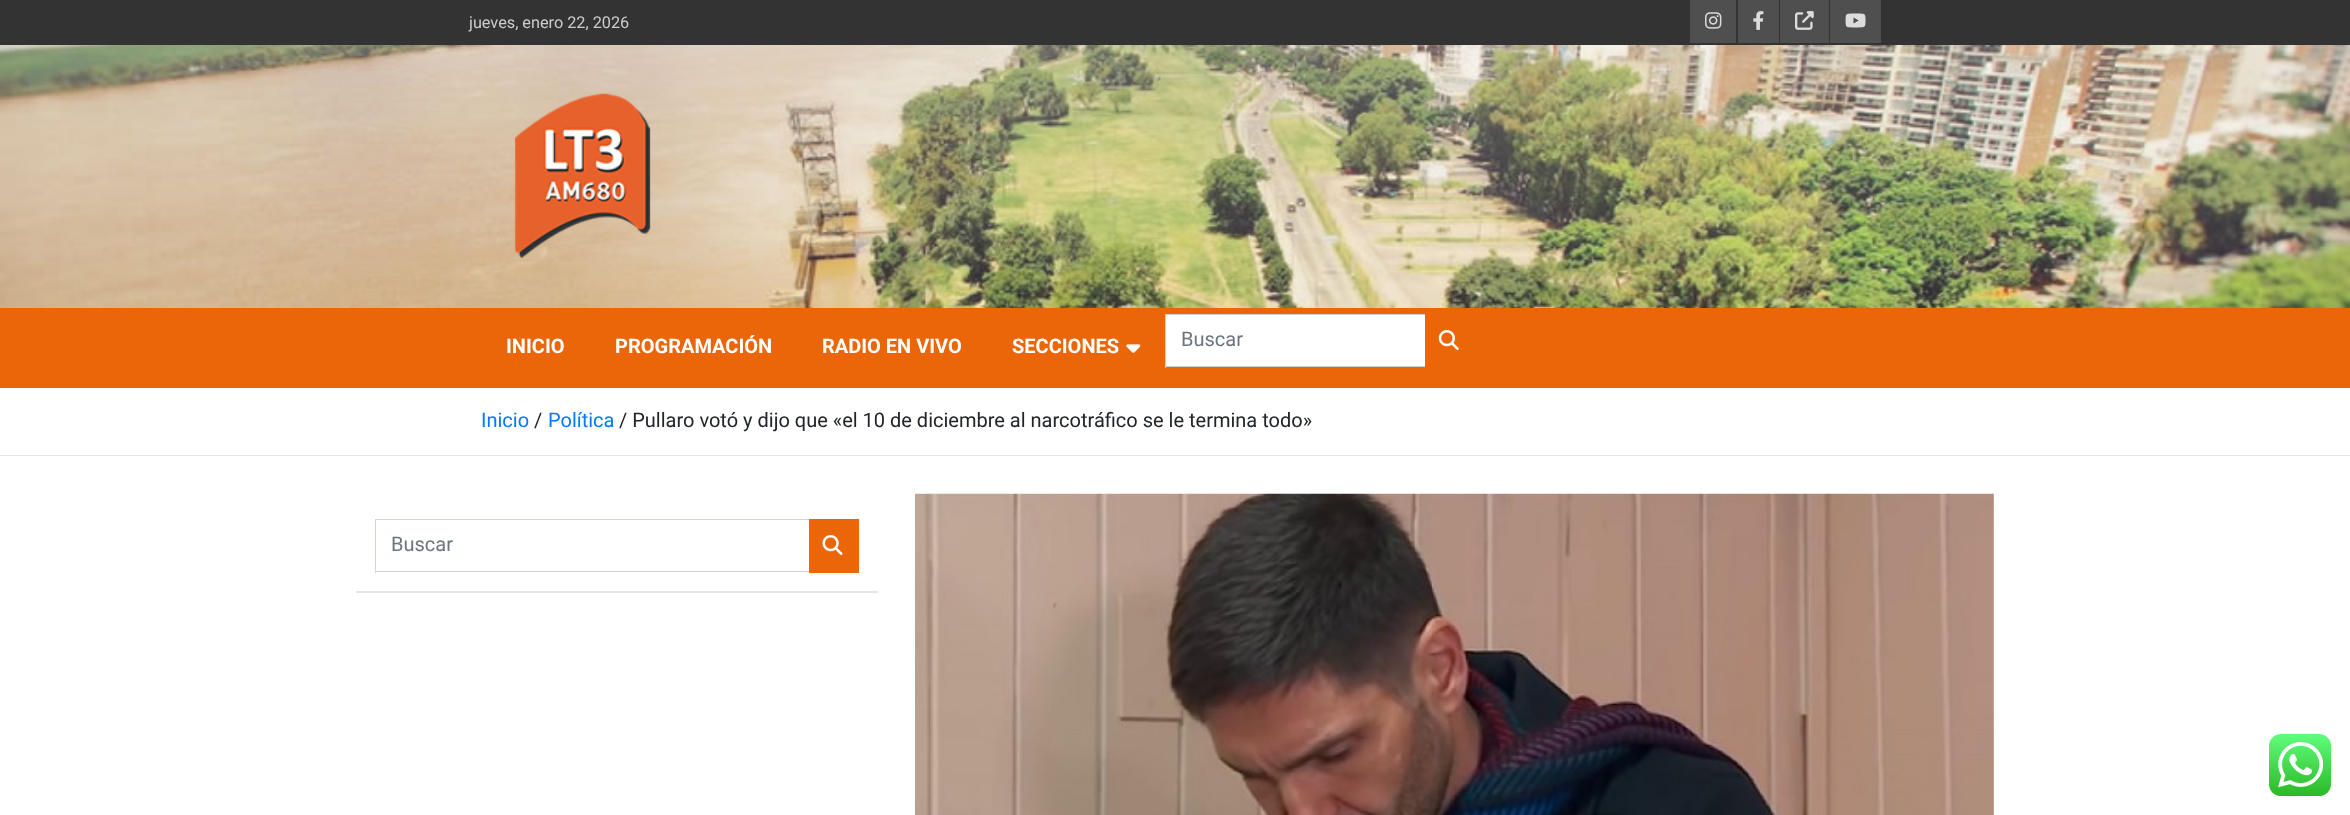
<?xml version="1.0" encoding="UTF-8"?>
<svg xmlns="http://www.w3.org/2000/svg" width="2350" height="815">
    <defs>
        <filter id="blur1" x="-50%" y="-200%" width="200%" height="500%"><feGaussianBlur stdDeviation="0.5"/></filter>
    </defs>
    <rect width="100%" height="100%" fill="#FFFFFF"/>
    <rect x="0" y="0" width="2350" height="45" fill="#333333"/>
    <text x="469" y="28" font-family="Roboto" font-size="16.25" fill="#CCCCCC">jueves, enero 22, 2026</text>
    <rect x="1690" y="0" width="46" height="43" fill="#4F4F4F"/>
    <image x="1705" y="12" width="17" height="17" href="img_01.png"/>
    <rect x="1738" y="0" width="41" height="43" fill="#4F4F4F"/>
    <image x="1753" y="11" width="11" height="19" href="img_02.png"/>
    <rect x="1780" y="0" width="49" height="43" fill="#4F4F4F"/>
    <image x="1795" y="11" width="19" height="19" href="img_03.png"/>
    <rect x="1830" y="0" width="51" height="43" fill="#4F4F4F"/>
    <image x="1845" y="13" width="21" height="15" href="img_04.png"/>
    <image x="0" y="45" width="2350" height="263" href="img_05.png"/>
    <image x="514" y="93" width="137" height="165" href="img_06.png"/>
    <rect x="0" y="308" width="2350" height="80" fill="#EB6608"/>
    <text x="506" y="353" font-family="Roboto" font-size="20" font-weight="700" fill="#FFFFFF">INICIO</text>
    <text x="615" y="353" font-family="Roboto" font-size="20" font-weight="700" fill="#FFFFFF">PROGRAMACIÓN</text>
    <text x="822" y="353" font-family="Roboto" font-size="20" font-weight="700" fill="#FFFFFF">RADIO EN VIVO</text>
    <text x="1012" y="353" font-family="Roboto" font-size="20" font-weight="700" fill="#FFFFFF">SECCIONES</text>
    <image x="1126" y="344" width="15" height="9" href="img_07.png"/>
    <rect x="1166" y="315" width="259" height="51" fill="#FFFFFF"/>
    <rect x="1165" y="314" width="260" height="1" fill="#CED4DA"/>
    <rect x="1165" y="366" width="260" height="1" fill="#CED4DA"/>
    <rect x="1165" y="314" width="1" height="54" fill="#CED4DA"/>
    <text x="1181" y="346" font-family="Roboto" font-size="20" fill="#6C757D">Buscar</text>
    <image x="1438" y="330" width="21" height="20" href="img_08.png"/>
    <rect x="0" y="455" width="2350" height="1" fill="#E6E6E6"/>
    <text x="481" y="427" font-family="Roboto" font-size="20" fill="#007BFF">Inicio</text>
    <text x="534" y="427" font-family="Roboto" font-size="20" fill="#212529">/</text>
    <text x="548" y="427" font-family="Roboto" font-size="20" fill="#007BFF">Política</text>
    <text x="619" y="427" font-family="Roboto" font-size="20" fill="#212529">/ Pullaro votó y dijo que «el 10 de diciembre al narcotráfico se le termina todo»</text>
    <rect x="356" y="495" width="522" height="98" fill="#000000" fill-opacity="0.1" filter="url(#blur1)"/>
    <rect x="356" y="494" width="522" height="97" fill="#FFFFFF"/>
    <rect x="375" y="519" width="434" height="1" fill="#CED4DA"/>
    <rect x="375" y="571" width="434" height="1" fill="#CED4DA"/>
    <rect x="375" y="519" width="1" height="54" fill="#CED4DA"/>
    <text x="391" y="551" font-family="Roboto" font-size="20" fill="#6C757D">Buscar</text>
    <rect x="809" y="519" width="50" height="54" fill="#EB6608"/>
    <image x="822" y="535" width="21" height="20" href="img_09.png"/>
    <rect x="915" y="495" width="1079" height="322" fill="#000000" fill-opacity="0.1" filter="url(#blur1)"/>
    <image x="915" y="493" width="1079" height="322" href="img_10.png"/>
    <image x="2269" y="734" width="62" height="62" href="img_11.png"/>
</svg>
